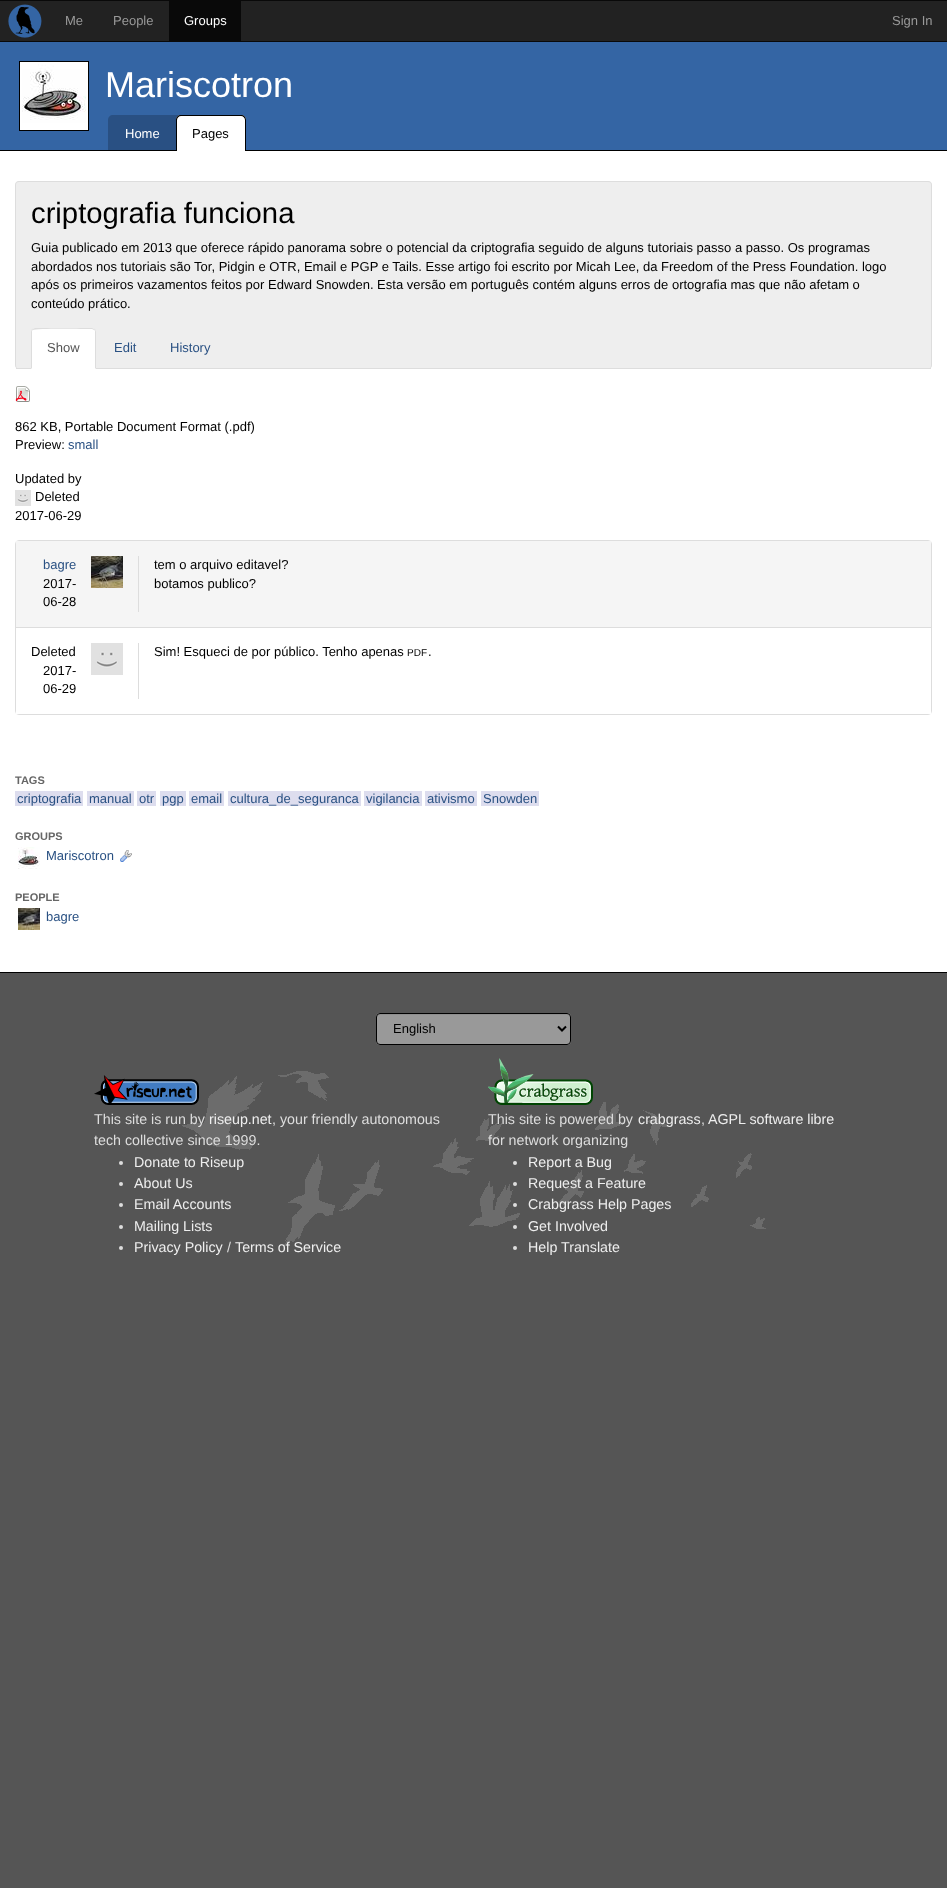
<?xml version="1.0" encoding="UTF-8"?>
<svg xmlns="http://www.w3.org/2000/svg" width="947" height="1888">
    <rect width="100%" height="100%" fill="#555555"/>
    <rect x="0" y="1" width="947" height="40" fill="#222222"/>
    <rect x="0" y="0" width="947" height="1" fill="#090909"/>
    <rect x="0" y="41" width="947" height="1" fill="#090909"/>
    <image x="8" y="4" width="34" height="34" href="img_01.png"/>
    <text x="65" y="25" font-family="Liberation Sans" font-size="13" fill="#999999">Me</text>
    <text x="113" y="25" font-family="Liberation Sans" font-size="13" fill="#999999">People</text>
    <rect x="169" y="1" width="72" height="40" fill="#090909"/>
    <text x="184" y="25" font-family="Liberation Sans" font-size="13" fill="#FFFFFF">Groups</text>
    <text x="892" y="25" font-family="Liberation Sans" font-size="13" fill="#999999">Sign In</text>
    <rect x="0" y="151" width="947" height="821" fill="#FFFFFF"/>
    <rect x="0" y="972" width="947" height="1" fill="#000000"/>
    <rect x="0" y="42" width="947" height="108" fill="#3465A4"/>
    <rect x="0" y="150" width="947" height="1" fill="#000000"/>
    <image x="22" y="64" width="64" height="64" href="img_02.png"/>
    <rect x="21" y="63" width="66" height="66" fill="none" stroke="#FFFFFF" stroke-width="2"/>
    <rect x="19.5" y="61.5" width="69" height="69" fill="none" stroke="#000000"/>
    <text x="105" y="97" font-family="Liberation Sans" font-size="36" fill="#FFFFFF">Mariscotron</text>
    <path d="M 113 115 H 176 V 151 H 108 V 120 C 108 117 110 115 113 115 Z" fill="#000000" fill-opacity="0.2"/>
    <text x="125" y="138" font-family="Liberation Sans" font-size="13" fill="#FFFFFF">Home</text>
    <path d="M 176 115 H 241 C 244 115 246 117 246 120 V 151 H 176 Z" fill="#000000" fill-opacity="0.2"/>
    <path d="M 181 115 H 241 C 244 115 246 117 246 120 V 151 H 176 V 120 C 176 117 178 115 181 115 Z" fill="#FFFFFF"/>
    <path d="M 181 115 H 241 C 244 115 246 117 246 120 V 151 H 176 V 120 C 176 117 178 115 181 115 Z M 181 116 H 241 C 243 116 245 118 245 120 V 151 H 177 V 120 C 177 118 179 116 181 116 Z" fill="#000000" fill-rule="evenodd"/>
    <text x="192" y="138" font-family="Liberation Sans" font-size="13" fill="#000000">Pages</text>
    <rect x="15" y="181" width="917" height="188" rx="4" fill="#EEEEEE"/>
    <path d="M 19 181 H 928 C 930 181 932 183 932 185 V 365 C 932 367 930 369 928 369 H 19 C 17 369 15 367 15 365 V 185 C 15 183 17 181 19 181 Z M 19 182 H 928 C 930 182 931 183 931 185 V 365 C 931 367 930 369 928 369 H 19 C 17 369 16 367 16 365 V 185 C 16 183 17 182 19 182 Z" fill="#DDDDDD" fill-rule="evenodd"/>
    <text x="31" y="223" font-family="Liberation Sans" font-size="29.25" fill="#000000">criptografia funciona</text>
    <text font-family="Liberation Sans" font-size="13" fill="#000000">
        <tspan x="31" y="252">Guia publicado em 2013 que oferece rápido panorama sobre o potencial da criptografia seguido de alguns tutoriais passo a passo. Os programas</tspan>
        <tspan x="31" y="271">abordados nos tutoriais são Tor, Pidgin e OTR, Email e PGP e Tails. Esse artigo foi escrito por Micah Lee, da Freedom of the Press Foundation. logo</tspan>
        <tspan x="31" y="289">após os primeiros vazamentos feitos por Edward Snowden. Esta versão em português contém alguns erros de ortografia mas que não afetam o</tspan>
        <tspan x="31" y="308">conteúdo prático.</tspan>
    </text>
    <rect x="16" y="368" width="915" height="1" fill="#DDDDDD"/>
    <path d="M 35 328 H 92 C 94 328 96 330 96 332 V 369 H 31 V 332 C 31 330 33 328 35 328 Z" fill="#FFFFFF"/>
    <path d="M 35 328 L 32 329 L 33 330 C 35 328 87 329 92 329 L 94 330 L 95 329 L 92 328 Z" fill="#DDDDDD"/>
    <path d="M 96 369 V 332 C 96 331 95.5 330 95 329 L 94 330 C 95 330 95 331 95 332 V 368 Z" fill="#DDDDDD"/>
    <path d="M 31 369 L 32 368 V 332 C 32 331 32 330 33 330 L 32 329 C 31.5 330 31 331 31 332 Z" fill="#DDDDDD"/>
    <text x="47" y="352" font-family="Liberation Sans" font-size="13" fill="#555555">Show</text>
    <text x="114" y="352" font-family="Liberation Sans" font-size="13" fill="#2A5183">Edit</text>
    <text x="170" y="352" font-family="Liberation Sans" font-size="13" fill="#2A5183">History</text>
    <image x="15" y="386" width="15" height="16" href="img_03.png"/>
    <text font-family="Liberation Sans" font-size="13" fill="#000000">
        <tspan x="15" y="431">862 KB, Portable Document Format (.pdf)</tspan>
        <tspan x="15" y="449">Preview:</tspan>
    </text>
    <text x="68" y="449" font-family="Liberation Sans" font-size="13" fill="#2A5183">small</text>
    <text x="15" y="483" font-family="Liberation Sans" font-size="13" fill="#000000">Updated by</text>
    <image x="15" y="490" width="16" height="16" href="img_04.png"/>
    <text x="35" y="501" font-family="Liberation Sans" font-size="13" fill="#000000">Deleted</text>
    <text x="15" y="520" font-family="Liberation Sans" font-size="13" fill="#000000">2017-06-29</text>
    <rect x="15.5" y="540.5" width="916" height="174" rx="3.5" fill="none" stroke="#DDDDDD"/>
    <rect x="16" y="541" width="915" height="86" fill="#F5F5F5"/>
    <image x="91" y="556" width="32" height="32" href="img_05.png"/>
    <text x="43" y="569" font-family="Liberation Sans" font-size="13" fill="#2A5183">bagre</text>
    <text font-family="Liberation Sans" font-size="13" fill="#000000">
        <tspan x="43" y="588">2017-</tspan>
        <tspan x="43" y="606">06-28</tspan>
    </text>
    <rect x="138" y="556" width="1" height="56" fill="#DDDDDD"/>
    <text font-family="Liberation Sans" font-size="13" fill="#000000">
        <tspan x="154" y="569">tem o arquivo editavel?</tspan>
        <tspan x="154" y="588">botamos publico?</tspan>
    </text>
    <rect x="16" y="711" width="915" height="3" fill="#FFFFFF"/>
    <rect x="16" y="627" width="915" height="1" fill="#DDDDDD"/>
    <image x="91" y="643" width="32" height="32" href="img_06.png"/>
    <text x="31" y="656" font-family="Liberation Sans" font-size="13" fill="#000000">Deleted</text>
    <text font-family="Liberation Sans" font-size="13" fill="#000000">
        <tspan x="43" y="675">2017-</tspan>
        <tspan x="43" y="693">06-29</tspan>
    </text>
    <rect x="138" y="643" width="1" height="56" fill="#DDDDDD"/>
    <text x="154" y="656" font-family="Liberation Sans" font-size="13" fill="#000000">Sim! Esqueci de por público. Tenho apenas</text>
    <text x="407" y="656" font-family="Liberation Sans" font-size="10" fill="#000000">PDF</text>
    <text x="428" y="656" font-family="Liberation Sans" font-size="13" fill="#000000">.</text>
    <text x="15" y="784" font-family="Liberation Sans" font-size="11" font-weight="700" fill="#666666">TAGS</text>
    <rect x="15" y="791" width="68" height="15" fill="#DDDDEE"/>
    <text x="17" y="803" font-family="Liberation Sans" font-size="13" fill="#2A5183">criptografia</text>
    <rect x="87" y="791" width="47" height="15" fill="#DDDDEE"/>
    <text x="89" y="803" font-family="Liberation Sans" font-size="13" fill="#2A5183">manual</text>
    <rect x="137" y="791" width="19" height="15" fill="#DDDDEE"/>
    <text x="139" y="803" font-family="Liberation Sans" font-size="13" fill="#2A5183">otr</text>
    <rect x="160" y="791" width="26" height="15" fill="#DDDDEE"/>
    <text x="162" y="803" font-family="Liberation Sans" font-size="13" fill="#2A5183">pgp</text>
    <rect x="189" y="791" width="35" height="15" fill="#DDDDEE"/>
    <text x="191" y="803" font-family="Liberation Sans" font-size="13" fill="#2A5183">email</text>
    <rect x="228" y="791" width="133" height="15" fill="#DDDDEE"/>
    <text x="230" y="803" font-family="Liberation Sans" font-size="13" fill="#2A5183">cultura_de_seguranca</text>
    <rect x="364" y="791" width="58" height="15" fill="#DDDDEE"/>
    <text x="366" y="803" font-family="Liberation Sans" font-size="13" fill="#2A5183">vigilancia</text>
    <rect x="425" y="791" width="52" height="15" fill="#DDDDEE"/>
    <text x="427" y="803" font-family="Liberation Sans" font-size="13" fill="#2A5183">ativismo</text>
    <rect x="481" y="791" width="58" height="15" fill="#DDDDEE"/>
    <text x="483" y="803" font-family="Liberation Sans" font-size="13" fill="#2A5183">Snowden</text>
    <text x="15" y="840" font-family="Liberation Sans" font-size="11" font-weight="700" fill="#666666">GROUPS</text>
    <image x="18" y="847" width="22" height="22" href="img_07.png"/>
    <text x="46" y="860" font-family="Liberation Sans" font-size="13" fill="#2A5183">Mariscotron</text>
    <image x="120" y="850" width="12" height="12" href="img_08.png"/>
    <text x="15" y="901" font-family="Liberation Sans" font-size="11" font-weight="700" fill="#666666">PEOPLE</text>
    <image x="18" y="908" width="22" height="22" href="img_09.png"/>
    <text x="46" y="921" font-family="Liberation Sans" font-size="13" fill="#2A5183">bagre</text>
    <image x="182" y="1071" width="584" height="175" href="img_10.png"/>
    <rect x="376" y="1013" width="195" height="32" rx="4" fill="#999999"/>
    <path d="M 380 1015 H 567 C 569 1015 570 1016 570 1018 C 570 1016 569 1014 567 1014 H 380 C 378 1014 377 1016 377 1018 C 377 1016 378 1015 380 1015 Z" fill="#8E8E8E"/>
    <rect x="376.5" y="1013.5" width="194" height="31" rx="3.5" fill="none" stroke="#000000"/>
    <path d="M 558 1026.5 L 562 1030.5 L 566 1026.5" fill="none" stroke="#000000" stroke-width="2"/>
    <text x="393" y="1033" font-family="Liberation Sans" font-size="13" fill="#000000">English</text>
    <image x="94" y="1075" width="105" height="30" href="img_11.png"/>
    <text x="94" y="1124" font-family="Liberation Sans" font-size="14.25" fill="#DDDDDD">This site is run by</text>
    <text x="209" y="1124" font-family="Liberation Sans" font-size="14.25" fill="#EEEEEE">riseup.net</text>
    <text x="272" y="1124" font-family="Liberation Sans" font-size="14.25" fill="#DDDDDD">, your friendly autonomous</text>
    <text x="94" y="1145" font-family="Liberation Sans" font-size="14.25" fill="#DDDDDD">tech collective since 1999.</text>
    <circle cx="121" cy="1163" r="2" fill="#DDDDDD"/>
    <text x="134" y="1167" font-family="Liberation Sans" font-size="14.25" fill="#EEEEEE">Donate to Riseup</text>
    <circle cx="121" cy="1184" r="2" fill="#DDDDDD"/>
    <text x="134" y="1188" font-family="Liberation Sans" font-size="14.25" fill="#EEEEEE">About Us</text>
    <circle cx="121" cy="1205" r="2" fill="#DDDDDD"/>
    <text x="134" y="1209" font-family="Liberation Sans" font-size="14.25" fill="#EEEEEE">Email Accounts</text>
    <circle cx="121" cy="1227" r="2" fill="#DDDDDD"/>
    <text x="134" y="1231" font-family="Liberation Sans" font-size="14.25" fill="#EEEEEE">Mailing Lists</text>
    <circle cx="121" cy="1248" r="2" fill="#DDDDDD"/>
    <text x="134" y="1252" font-family="Liberation Sans" font-size="14.25" fill="#EEEEEE">Privacy Policy</text>
    <text x="227" y="1252" font-family="Liberation Sans" font-size="14.25" fill="#DDDDDD">/</text>
    <text x="235" y="1252" font-family="Liberation Sans" font-size="14.25" fill="#EEEEEE">Terms of Service</text>
    <image x="488" y="1058" width="105" height="47" href="img_12.png"/>
    <text x="488" y="1124" font-family="Liberation Sans" font-size="14.25" fill="#DDDDDD">This site is powered by</text>
    <text x="638" y="1124" font-family="Liberation Sans" font-size="14.25" fill="#EEEEEE">crabgrass</text>
    <text x="701" y="1124" font-family="Liberation Sans" font-size="14.25" fill="#DDDDDD">,</text>
    <text x="708" y="1124" font-family="Liberation Sans" font-size="14.25" fill="#EEEEEE">AGPL software libre</text>
    <text x="488" y="1145" font-family="Liberation Sans" font-size="14.25" fill="#DDDDDD">for network organizing</text>
    <circle cx="515" cy="1163" r="2" fill="#DDDDDD"/>
    <text x="528" y="1167" font-family="Liberation Sans" font-size="14.25" fill="#EEEEEE">Report a Bug</text>
    <circle cx="515" cy="1184" r="2" fill="#DDDDDD"/>
    <text x="528" y="1188" font-family="Liberation Sans" font-size="14.25" fill="#EEEEEE">Request a Feature</text>
    <circle cx="515" cy="1205" r="2" fill="#DDDDDD"/>
    <text x="528" y="1209" font-family="Liberation Sans" font-size="14.25" fill="#EEEEEE">Crabgrass Help Pages</text>
    <circle cx="515" cy="1227" r="2" fill="#DDDDDD"/>
    <text x="528" y="1231" font-family="Liberation Sans" font-size="14.25" fill="#EEEEEE">Get Involved</text>
    <circle cx="515" cy="1248" r="2" fill="#DDDDDD"/>
    <text x="528" y="1252" font-family="Liberation Sans" font-size="14.25" fill="#EEEEEE">Help Translate</text>
</svg>
